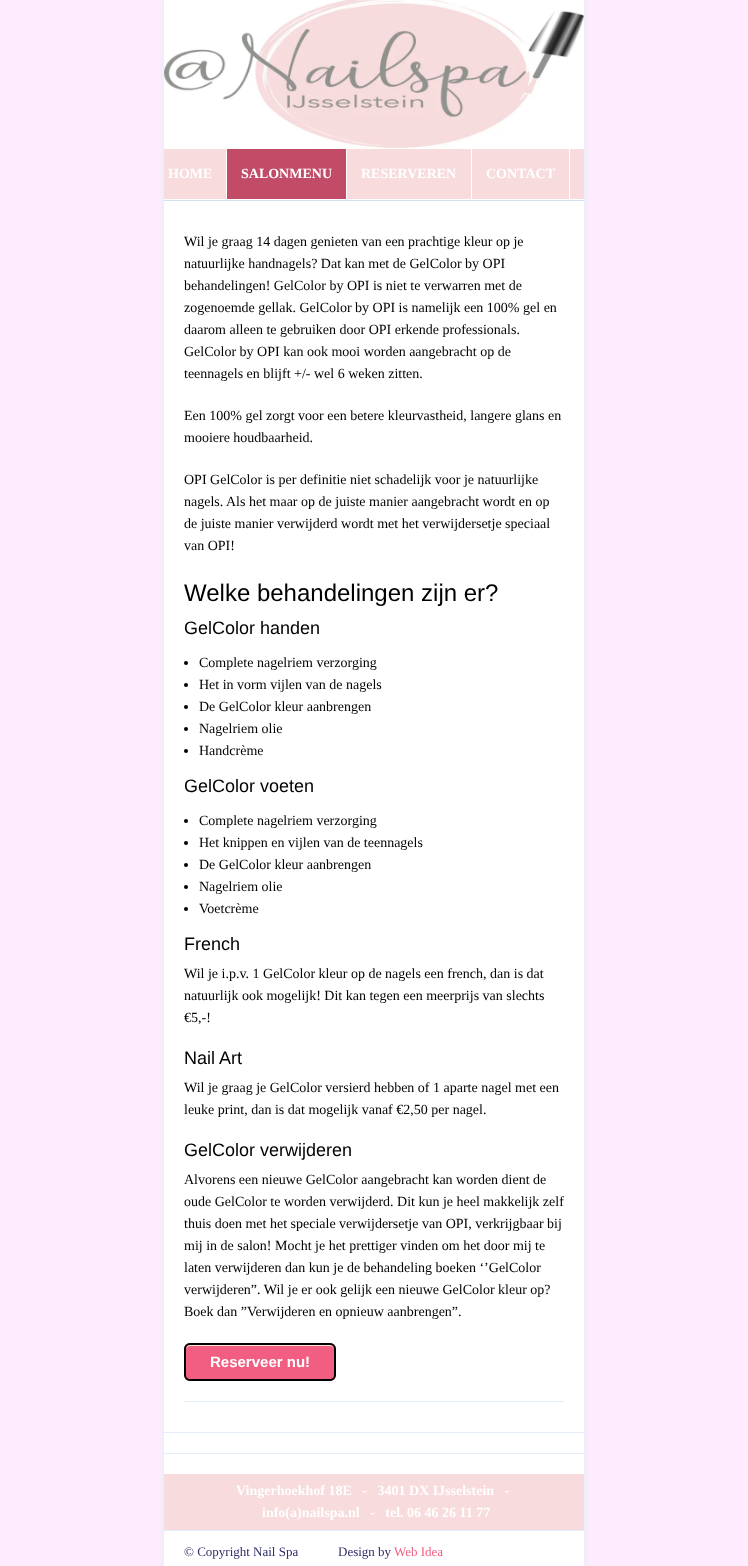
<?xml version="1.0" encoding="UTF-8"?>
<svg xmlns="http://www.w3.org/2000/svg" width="748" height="1566">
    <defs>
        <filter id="blur1" x="-50%" y="-200%" width="200%" height="500%"><feGaussianBlur stdDeviation="5"/></filter>
    </defs>
    <rect width="100%" height="100%" fill="#FEECFE"/>
    <rect x="164" y="-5" width="420" height="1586" fill="#E3EAF4" filter="url(#blur1)"/>
    <rect x="164" y="201" width="420" height="1365" fill="#FFFFFF"/>
    <image x="164" y="0" width="420" height="148" href="img_01.png"/>
    <rect x="164" y="149" width="420" height="50" fill="#F8DBDD"/>
    <rect x="164" y="148" width="420" height="1" fill="#FFFFFF"/>
    <rect x="164" y="199" width="420" height="1" fill="#FFFFFF"/>
    <rect x="226" y="149" width="1" height="50" fill="#FFFFFF"/>
    <text x="168" y="178" font-family="Liberation Serif" font-size="14" font-weight="700" fill="#FFFFFF">HOME</text>
    <rect x="227" y="149" width="119" height="50" fill="#C24B67"/>
    <rect x="346" y="149" width="1" height="50" fill="#FFFFFF"/>
    <text x="241" y="178" font-family="Liberation Serif" font-size="14" font-weight="700" fill="#FFFFFF">SALONMENU</text>
    <rect x="471" y="149" width="1" height="50" fill="#FFFFFF"/>
    <text x="361" y="178" font-family="Liberation Serif" font-size="14" font-weight="700" fill="#FFFFFF">RESERVEREN</text>
    <rect x="569" y="149" width="1" height="50" fill="#FFFFFF"/>
    <text x="486" y="178" font-family="Liberation Serif" font-size="14" font-weight="700" fill="#FFFFFF">CONTACT</text>
    <rect x="164" y="200" width="420" height="1" fill="#D2E1F1"/>
    <rect x="164" y="1432" width="420" height="1" fill="#E4ECF9"/>
    <rect x="184" y="1401" width="380" height="1" fill="#E4ECF9"/>
    <text font-family="Liberation Serif" font-size="14" fill="#000000">
        <tspan x="184" y="246">Wil je graag 14 dagen genieten van een prachtige kleur op je</tspan>
        <tspan x="184" y="268">natuurlijke handnagels? Dat kan met de GelColor by OPI</tspan>
        <tspan x="184" y="290">behandelingen! GelColor by OPI is niet te verwarren met de</tspan>
        <tspan x="184" y="312">zogenoemde gellak. GelColor by OPI is namelijk een 100% gel en</tspan>
        <tspan x="184" y="334">daarom alleen te gebruiken door OPI erkende professionals.</tspan>
        <tspan x="184" y="356">GelColor by OPI kan ook mooi worden aangebracht op de</tspan>
        <tspan x="184" y="378">teennagels en blijft +/- wel 6 weken zitten.</tspan>
    </text>
    <text font-family="Liberation Serif" font-size="14" fill="#000000">
        <tspan x="184" y="420">Een 100% gel zorgt voor een betere kleurvastheid, langere glans en</tspan>
        <tspan x="184" y="442">mooiere houdbaarheid.</tspan>
    </text>
    <text font-family="Liberation Serif" font-size="14" fill="#000000">
        <tspan x="184" y="484">OPI GelColor is per definitie niet schadelijk voor je natuurlijke</tspan>
        <tspan x="184" y="506">nagels. Als het maar op de juiste manier aangebracht wordt en op</tspan>
        <tspan x="184" y="528">de juiste manier verwijderd wordt met het verwijdersetje speciaal</tspan>
        <tspan x="184" y="550">van OPI!</tspan>
    </text>
    <text x="184" y="601" font-family="Liberation Sans" font-size="24" fill="#000000">Welke behandelingen zijn er?</text>
    <text x="184" y="634" font-family="Liberation Sans" font-size="18" fill="#000000">GelColor handen</text>
    <circle cx="186" cy="663" r="2" fill="#000000"/>
    <text x="199" y="667" font-family="Liberation Serif" font-size="14" fill="#000000">Complete nagelriem verzorging</text>
    <circle cx="186" cy="685" r="2" fill="#000000"/>
    <text x="199" y="689" font-family="Liberation Serif" font-size="14" fill="#000000">Het in vorm vijlen van de nagels</text>
    <circle cx="186" cy="707" r="2" fill="#000000"/>
    <text x="199" y="711" font-family="Liberation Serif" font-size="14" fill="#000000">De GelColor kleur aanbrengen</text>
    <circle cx="186" cy="729" r="2" fill="#000000"/>
    <text x="199" y="733" font-family="Liberation Serif" font-size="14" fill="#000000">Nagelriem olie</text>
    <circle cx="186" cy="751" r="2" fill="#000000"/>
    <text x="199" y="755" font-family="Liberation Serif" font-size="14" fill="#000000">Handcrème</text>
    <text x="184" y="792" font-family="Liberation Sans" font-size="18" fill="#000000">GelColor voeten</text>
    <circle cx="186" cy="821" r="2" fill="#000000"/>
    <text x="199" y="825" font-family="Liberation Serif" font-size="14" fill="#000000">Complete nagelriem verzorging</text>
    <circle cx="186" cy="843" r="2" fill="#000000"/>
    <text x="199" y="847" font-family="Liberation Serif" font-size="14" fill="#000000">Het knippen en vijlen van de teennagels</text>
    <circle cx="186" cy="865" r="2" fill="#000000"/>
    <text x="199" y="869" font-family="Liberation Serif" font-size="14" fill="#000000">De GelColor kleur aanbrengen</text>
    <circle cx="186" cy="887" r="2" fill="#000000"/>
    <text x="199" y="891" font-family="Liberation Serif" font-size="14" fill="#000000">Nagelriem olie</text>
    <circle cx="186" cy="909" r="2" fill="#000000"/>
    <text x="199" y="913" font-family="Liberation Serif" font-size="14" fill="#000000">Voetcrème</text>
    <text x="184" y="950" font-family="Liberation Sans" font-size="18" fill="#000000">French</text>
    <text font-family="Liberation Serif" font-size="14" fill="#000000">
        <tspan x="184" y="978">Wil je i.p.v. 1 GelColor kleur op de nagels een french, dan is dat</tspan>
        <tspan x="184" y="1000">natuurlijk ook mogelijk! Dit kan tegen een meerprijs van slechts</tspan>
        <tspan x="184" y="1022">€5,-!</tspan>
    </text>
    <text x="184" y="1064" font-family="Liberation Sans" font-size="18" fill="#000000">Nail Art</text>
    <text font-family="Liberation Serif" font-size="14" fill="#000000">
        <tspan x="184" y="1092">Wil je graag je GelColor versierd hebben of 1 aparte nagel met een</tspan>
        <tspan x="184" y="1114">leuke print, dan is dat mogelijk vanaf €2,50 per nagel.</tspan>
    </text>
    <text x="184" y="1156" font-family="Liberation Sans" font-size="18" fill="#000000">GelColor verwijderen</text>
    <text font-family="Liberation Serif" font-size="14" fill="#000000">
        <tspan x="184" y="1184">Alvorens een nieuwe GelColor aangebracht kan worden dient de</tspan>
        <tspan x="184" y="1206">oude GelColor te worden verwijderd. Dit kun je heel makkelijk zelf</tspan>
        <tspan x="184" y="1228">thuis doen met het speciale verwijdersetje van OPI, verkrijgbaar bij</tspan>
        <tspan x="184" y="1250">mij in de salon! Mocht je het prettiger vinden om het door mij te</tspan>
        <tspan x="184" y="1272">laten verwijderen dan kun je de behandeling boeken ‘’GelColor</tspan>
        <tspan x="184" y="1294">verwijderen”. Wil je er ook gelijk een nieuwe GelColor kleur op?</tspan>
        <tspan x="184" y="1316">Boek dan ”Verwijderen en opnieuw aanbrengen”.</tspan>
    </text>
    <rect x="184" y="1343" width="152" height="38" rx="6" fill="#F15E81"/>
    <path d="M 190 1346 H 330 C 332 1346 334 1348 334 1350 C 334 1348 333 1346 331 1345 H 190 C 187 1345 186 1347 186 1350 C 186 1348 188 1346 190 1346 Z" fill="#FCE2C1"/>
    <rect x="185" y="1344" width="150" height="36" rx="5" fill="none" stroke="#000000" stroke-width="2"/>
    <text x="210" y="1367" font-family="Liberation Sans" font-size="15" font-weight="700" fill="#FFFFFF">Reserveer nu!</text>
    <rect x="164" y="1453" width="420" height="1" fill="#E4ECF9"/>
    <rect x="164" y="1474" width="420" height="56" fill="#F8DBDD"/>
    <rect x="164" y="1530" width="420" height="1" fill="#E4ECF9"/>
    <text x="236" y="1495" font-family="Liberation Serif" font-size="14" font-weight="700" fill="#FFFFFF" xml:space="preserve">Vingerhoekhof 18E   -   3401 DX IJsselstein   -</text>
    <text x="262" y="1517" font-family="Liberation Serif" font-size="14" font-weight="700" fill="#FFFFFF" xml:space="preserve">info(a)nailspa.nl   -   tel. 06 46 26 11 77</text>
    <text x="184" y="1556" font-family="Liberation Serif" font-size="13" fill="#2E2C6A">© Copyright Nail Spa</text>
    <text x="338" y="1556" font-family="Liberation Serif" font-size="13" fill="#2E2C6A">Design by</text>
    <text x="394" y="1556" font-family="Liberation Serif" font-size="13" fill="#F15E81">Web Idea</text>
</svg>
